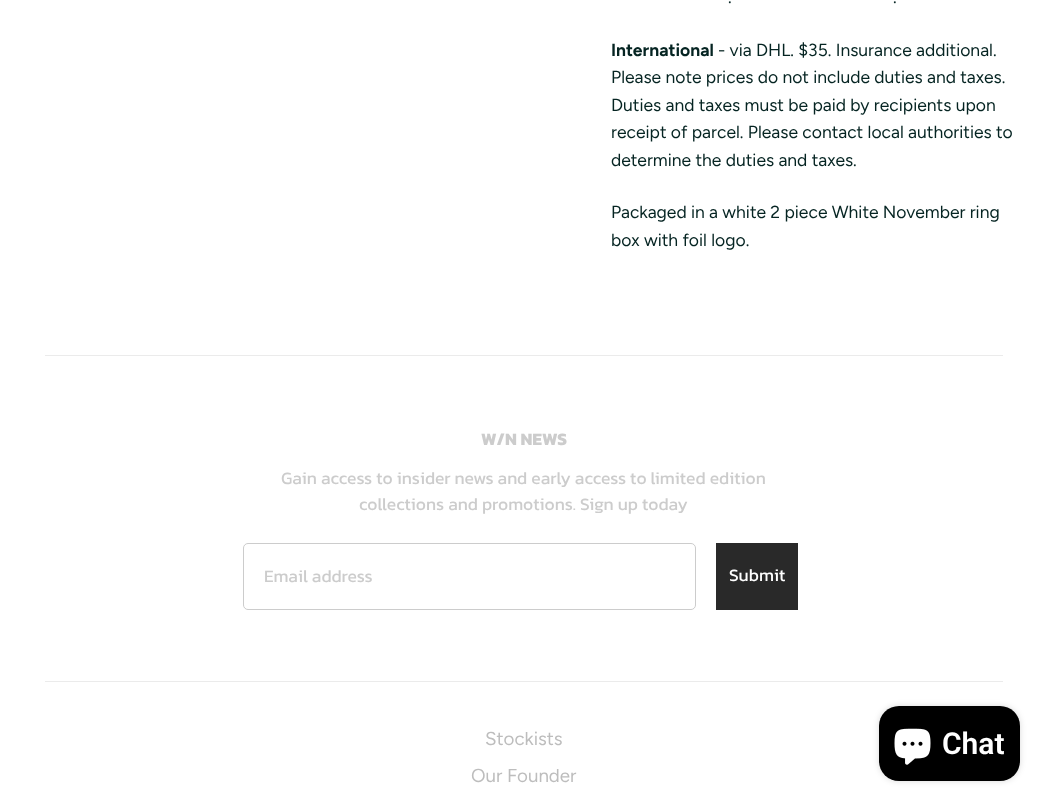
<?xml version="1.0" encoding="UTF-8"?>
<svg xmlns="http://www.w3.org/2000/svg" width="1047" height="807">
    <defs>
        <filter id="blur1" x="-50%" y="-200%" width="200%" height="500%"><feGaussianBlur stdDeviation="3"/></filter>
    </defs>
    <rect width="100%" height="100%" fill="#FFFFFF"/>
    <text x="728" y="3" font-family="Figtree" font-size="17.5" fill="#052422">.</text>
    <text x="893" y="3" font-family="Figtree" font-size="17.5" fill="#052422">.</text>
    <text x="611" y="56" font-family="Figtree" font-size="17.5" font-weight="700" fill="#052422">International</text>
    <text x="718" y="56" font-family="Figtree" font-size="17.5" fill="#052422">- via DHL. $35. Insurance additional.</text>
    <text font-family="Figtree" font-size="17.5" fill="#052422">
        <tspan x="611" y="83">Please note prices do not include duties and taxes.</tspan>
        <tspan x="611" y="111">Duties and taxes must be paid by recipients upon</tspan>
        <tspan x="611" y="138">receipt of parcel. Please contact local authorities to</tspan>
        <tspan x="611" y="166">determine the duties and taxes.</tspan>
    </text>
    <text font-family="Figtree" font-size="17.5" fill="#052422">
        <tspan x="611" y="218">Packaged in a white 2 piece White November ring</tspan>
        <tspan x="611" y="246">box with foil logo.</tspan>
    </text>
    <rect x="45" y="355" width="958" height="1" fill="#EBEBEB"/>
    <text x="481" y="445" font-family="Kanit" font-size="17.5" font-weight="700" fill="#CCCCCC">W/N NEWS</text>
    <text x="281" y="484" font-family="Kanit" font-size="17.5" fill="#CCCCCC">Gain access to insider news and early access to limited edition</text>
    <text x="359" y="510" font-family="Kanit" font-size="17.5" fill="#CCCCCC">collections and promotions. Sign up today</text>
    <rect x="243.5" y="543.5" width="452" height="66" rx="4.5" fill="none" stroke="#CCCCCC"/>
    <text x="264" y="582" font-family="Kanit" font-size="17.5" fill="#CCCCCC">Email address</text>
    <rect x="716" y="543" width="82" height="67" fill="#292929"/>
    <text x="729" y="581" font-family="'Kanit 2'" font-size="17.5" fill="#FFFFFF">Submit</text>
    <rect x="45" y="681" width="958" height="1" fill="#EBEBEB"/>
    <text x="485" y="745" font-family="Figtree" font-size="18.75" fill="#BDBDBD">Stockists</text>
    <text x="471" y="782" font-family="Figtree" font-size="18.75" fill="#BDBDBD">Our Founder</text>
    <rect x="879" y="706" width="141" height="75" rx="20" fill="#000000" fill-opacity="0.15" filter="url(#blur1)"/>
    <rect x="879" y="706" width="141" height="75" rx="20" fill="#000000"/>
    <image x="894" y="728" width="37" height="37" href="img_01.png"/>
    <text x="942" y="754" font-family="Roboto" font-size="30" font-weight="600" fill="#FFFFFF">Chat</text>
</svg>
